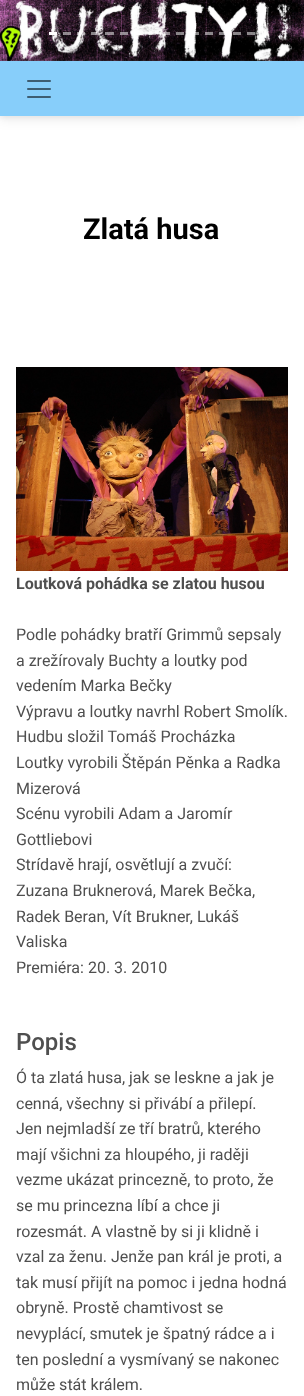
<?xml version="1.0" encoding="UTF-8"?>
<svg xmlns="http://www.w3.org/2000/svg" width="304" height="1396">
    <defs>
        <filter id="blur1" x="-50%" y="-200%" width="200%" height="500%"><feGaussianBlur stdDeviation="2"/></filter>
        <filter id="blur2" x="-50%" y="-200%" width="200%" height="500%"><feGaussianBlur stdDeviation="6"/></filter>
    </defs>
    <rect width="100%" height="100%" fill="#FFFFFF"/>
    <image x="0" y="0" width="304" height="61" href="img_01.png"/>
    <rect x="49" y="32" width="8" height="3" fill="#FFFFFF"/>
    <rect x="63" y="32" width="8" height="3" fill="#FFFFFF" fill-opacity="0.5"/>
    <rect x="77" y="32" width="8" height="3" fill="#FFFFFF" fill-opacity="0.5"/>
    <rect x="91" y="32" width="8" height="3" fill="#FFFFFF" fill-opacity="0.5"/>
    <rect x="105" y="32" width="9" height="3" fill="#FFFFFF" fill-opacity="0.5"/>
    <rect x="120" y="32" width="8" height="3" fill="#FFFFFF" fill-opacity="0.5"/>
    <rect x="134" y="33" width="8" height="2" fill="#FFFFFF" fill-opacity="0.5"/>
    <rect x="148" y="32" width="8" height="3" fill="#FFFFFF" fill-opacity="0.5"/>
    <rect x="162" y="32" width="8" height="3" fill="#FFFFFF" fill-opacity="0.5"/>
    <rect x="176" y="32" width="8" height="3" fill="#FFFFFF" fill-opacity="0.5"/>
    <rect x="190" y="32" width="9" height="3" fill="#FFFFFF" fill-opacity="0.5"/>
    <rect x="205" y="32" width="8" height="3" fill="#FFFFFF" fill-opacity="0.5"/>
    <rect x="219" y="32" width="8" height="3" fill="#FFFFFF" fill-opacity="0.5"/>
    <rect x="233" y="32" width="8" height="3" fill="#FFFFFF" fill-opacity="0.5"/>
    <rect x="247" y="32" width="8" height="3" fill="#FFFFFF" fill-opacity="0.5"/>
    <rect x="0" y="63" width="304" height="55" fill="#000000" fill-opacity="0.05" filter="url(#blur1)"/>
    <rect x="0" y="65" width="304" height="55" fill="#000000" fill-opacity="0.07" filter="url(#blur2)"/>
    <rect x="0" y="61" width="304" height="55" fill="#87CEFA"/>
    <image x="27" y="80" width="24" height="18" href="img_02.png"/>
    <text x="83" y="239" font-family="Roboto" font-size="29" font-weight="700" fill="#000000">Zlatá husa</text>
    <image x="16" y="367" width="272" height="204" href="img_03.png"/>
    <text x="16" y="589" font-family="Roboto" font-size="16" font-weight="700" fill="#4F4F4F">Loutková pohádka se zlatou husou</text>
    <text font-family="Roboto" font-size="16" fill="#4F4F4F">
        <tspan x="16" y="640">Podle pohádky bratří Grimmů sepsaly</tspan>
        <tspan x="16" y="666">a zrežírovaly Buchty a loutky pod</tspan>
        <tspan x="16" y="691">vedením Marka Bečky</tspan>
        <tspan x="16" y="717">Výpravu a loutky navrhl Robert Smolík.</tspan>
        <tspan x="16" y="742">Hudbu složil Tomáš Procházka</tspan>
        <tspan x="16" y="768">Loutky vyrobili Štěpán Pěnka a Radka</tspan>
        <tspan x="16" y="794">Mizerová</tspan>
        <tspan x="16" y="819">Scénu vyrobili Adam a Jaromír</tspan>
        <tspan x="16" y="845">Gottliebovi</tspan>
        <tspan x="16" y="870">Strídavě hrají, osvětlují a zvučí:</tspan>
        <tspan x="16" y="896">Zuzana Bruknerová, Marek Bečka,</tspan>
        <tspan x="16" y="922">Radek Beran, Vít Brukner, Lukáš</tspan>
        <tspan x="16" y="947">Valiska</tspan>
        <tspan x="16" y="973">Premiéra: 20. 3. 2010</tspan>
    </text>
    <text x="16" y="1050" font-family="Roboto" font-size="24" font-weight="500" fill="#4F4F4F">Popis</text>
    <text font-family="Roboto" font-size="16" fill="#4F4F4F">
        <tspan x="16" y="1083">Ó ta zlatá husa, jak se leskne a jak je</tspan>
        <tspan x="16" y="1109">cenná, všechny si přivábí a přilepí.</tspan>
        <tspan x="16" y="1134">Jen nejmladší ze tří bratrů, kterého</tspan>
        <tspan x="16" y="1160">mají všichni za hloupého, ji raději</tspan>
        <tspan x="16" y="1185">vezme ukázat princezně, to proto, že</tspan>
        <tspan x="16" y="1211">se mu princezna líbí a chce ji</tspan>
        <tspan x="16" y="1237">rozesmát. A vlastně by si ji klidně i</tspan>
        <tspan x="16" y="1262">vzal za ženu. Jenže pan král je proti, a</tspan>
        <tspan x="16" y="1288">tak musí přijít na pomoc i jedna hodná</tspan>
        <tspan x="16" y="1313">obryně. Prostě chamtivost se</tspan>
        <tspan x="16" y="1339">nevyplácí, smutek je špatný rádce a i</tspan>
        <tspan x="16" y="1365">ten poslední a vysmívaný se nakonec</tspan>
        <tspan x="16" y="1390">může stát králem.</tspan>
    </text>
</svg>
